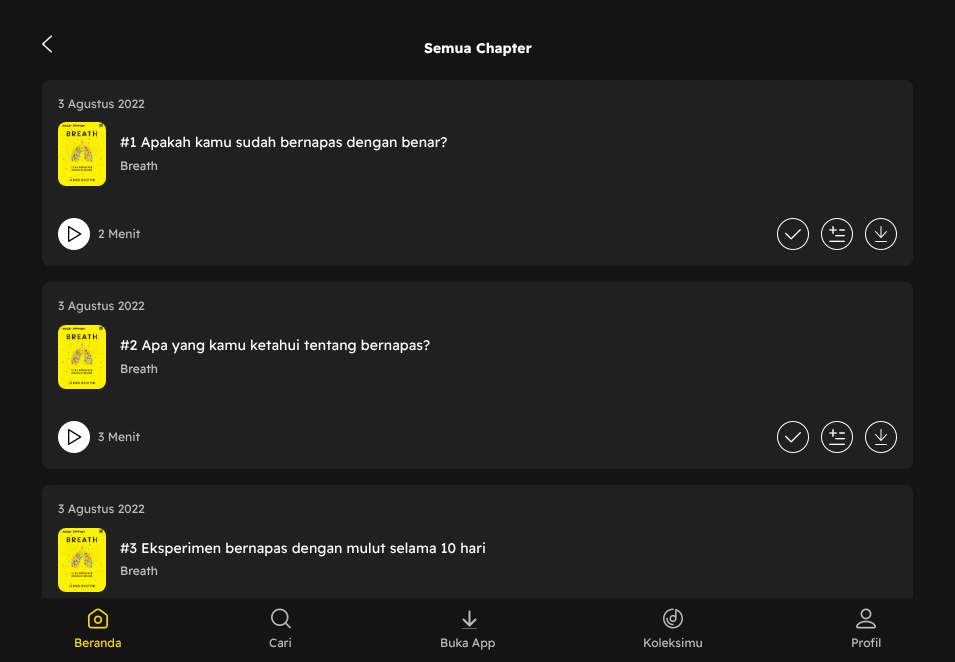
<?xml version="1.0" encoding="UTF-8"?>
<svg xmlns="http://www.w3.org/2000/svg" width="955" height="662">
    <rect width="100%" height="100%" fill="#141414"/>
    <image x="42" y="35" width="10" height="18" href="img_01.png"/>
    <text x="424" y="53" font-family="Readex Pro" font-size="14" font-weight="700" fill="#FFFFFF">Semua Chapter</text>
    <rect x="42" y="80" width="871" height="186" rx="8" fill="#202020"/>
    <text x="58" y="108" font-family="Readex Pro" font-size="12" fill="#BCBCBC">3 Agustus 2022</text>
    <image x="58" y="122" width="48" height="64" href="img_02.png"/>
    <text x="120" y="147" font-family="Readex Pro" font-size="14" letter-spacing="0.1" fill="#FFFFFF">#1 Apakah kamu sudah bernapas dengan benar?</text>
    <text x="120" y="170" font-family="Readex Pro" font-size="12" fill="#C4C4C4">Breath</text>
    <image x="58" y="218" width="32" height="32" href="img_03.png"/>
    <text x="98" y="238" font-family="Readex Pro" font-size="12" fill="#BCBCBC">2 Menit</text>
    <image x="777" y="218" width="32" height="32" href="img_04.png"/>
    <image x="821" y="218" width="32" height="32" href="img_05.png"/>
    <image x="865" y="218" width="32" height="32" href="img_06.png"/>
    <rect x="42" y="282" width="871" height="187" rx="8" fill="#202020"/>
    <text x="58" y="310" font-family="Readex Pro" font-size="12" fill="#BCBCBC">3 Agustus 2022</text>
    <image x="58" y="325" width="48" height="64" href="img_02.png"/>
    <text x="120" y="350" font-family="Readex Pro" font-size="14" letter-spacing="0.1" fill="#FFFFFF">#2 Apa yang kamu ketahui tentang bernapas?</text>
    <text x="120" y="373" font-family="Readex Pro" font-size="12" fill="#C4C4C4">Breath</text>
    <image x="58" y="421" width="32" height="32" href="img_03.png"/>
    <text x="98" y="441" font-family="Readex Pro" font-size="12" fill="#BCBCBC">3 Menit</text>
    <image x="777" y="421" width="32" height="32" href="img_04.png"/>
    <image x="821" y="421" width="32" height="32" href="img_05.png"/>
    <image x="865" y="421" width="32" height="32" href="img_06.png"/>
    <rect x="42" y="485" width="871" height="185" rx="8" fill="#202020"/>
    <text x="58" y="513" font-family="Readex Pro" font-size="12" fill="#BCBCBC">3 Agustus 2022</text>
    <image x="58" y="528" width="48" height="64" href="img_02.png"/>
    <text x="120" y="553" font-family="Readex Pro" font-size="14" letter-spacing="0.1" fill="#FFFFFF">#3 Eksperimen bernapas dengan mulut selama 10 hari</text>
    <text x="120" y="575" font-family="Readex Pro" font-size="12" fill="#C4C4C4">Breath</text>
    <rect x="42" y="598" width="871" height="64" fill="#141414"/>
    <image x="88" y="608" width="20" height="21" href="img_07.png"/>
    <text x="74" y="647" font-family="Readex Pro" font-size="12" fill="#FAD810">Beranda</text>
    <image x="271" y="608" width="20" height="21" href="img_08.png"/>
    <text x="269" y="647" font-family="Readex Pro" font-size="12" fill="#BCBCBC">Cari</text>
    <image x="461" y="610" width="16" height="19" href="img_09.png"/>
    <text x="440" y="647" font-family="Readex Pro" font-size="12" fill="#BCBCBC">Buka App</text>
    <image x="663" y="608" width="20" height="21" href="img_10.png"/>
    <text x="643" y="647" font-family="Readex Pro" font-size="12" fill="#BCBCBC">Koleksimu</text>
    <image x="856" y="608" width="20" height="21" href="img_11.png"/>
    <text x="851" y="647" font-family="Readex Pro" font-size="12" fill="#BCBCBC">Profil</text>
</svg>
